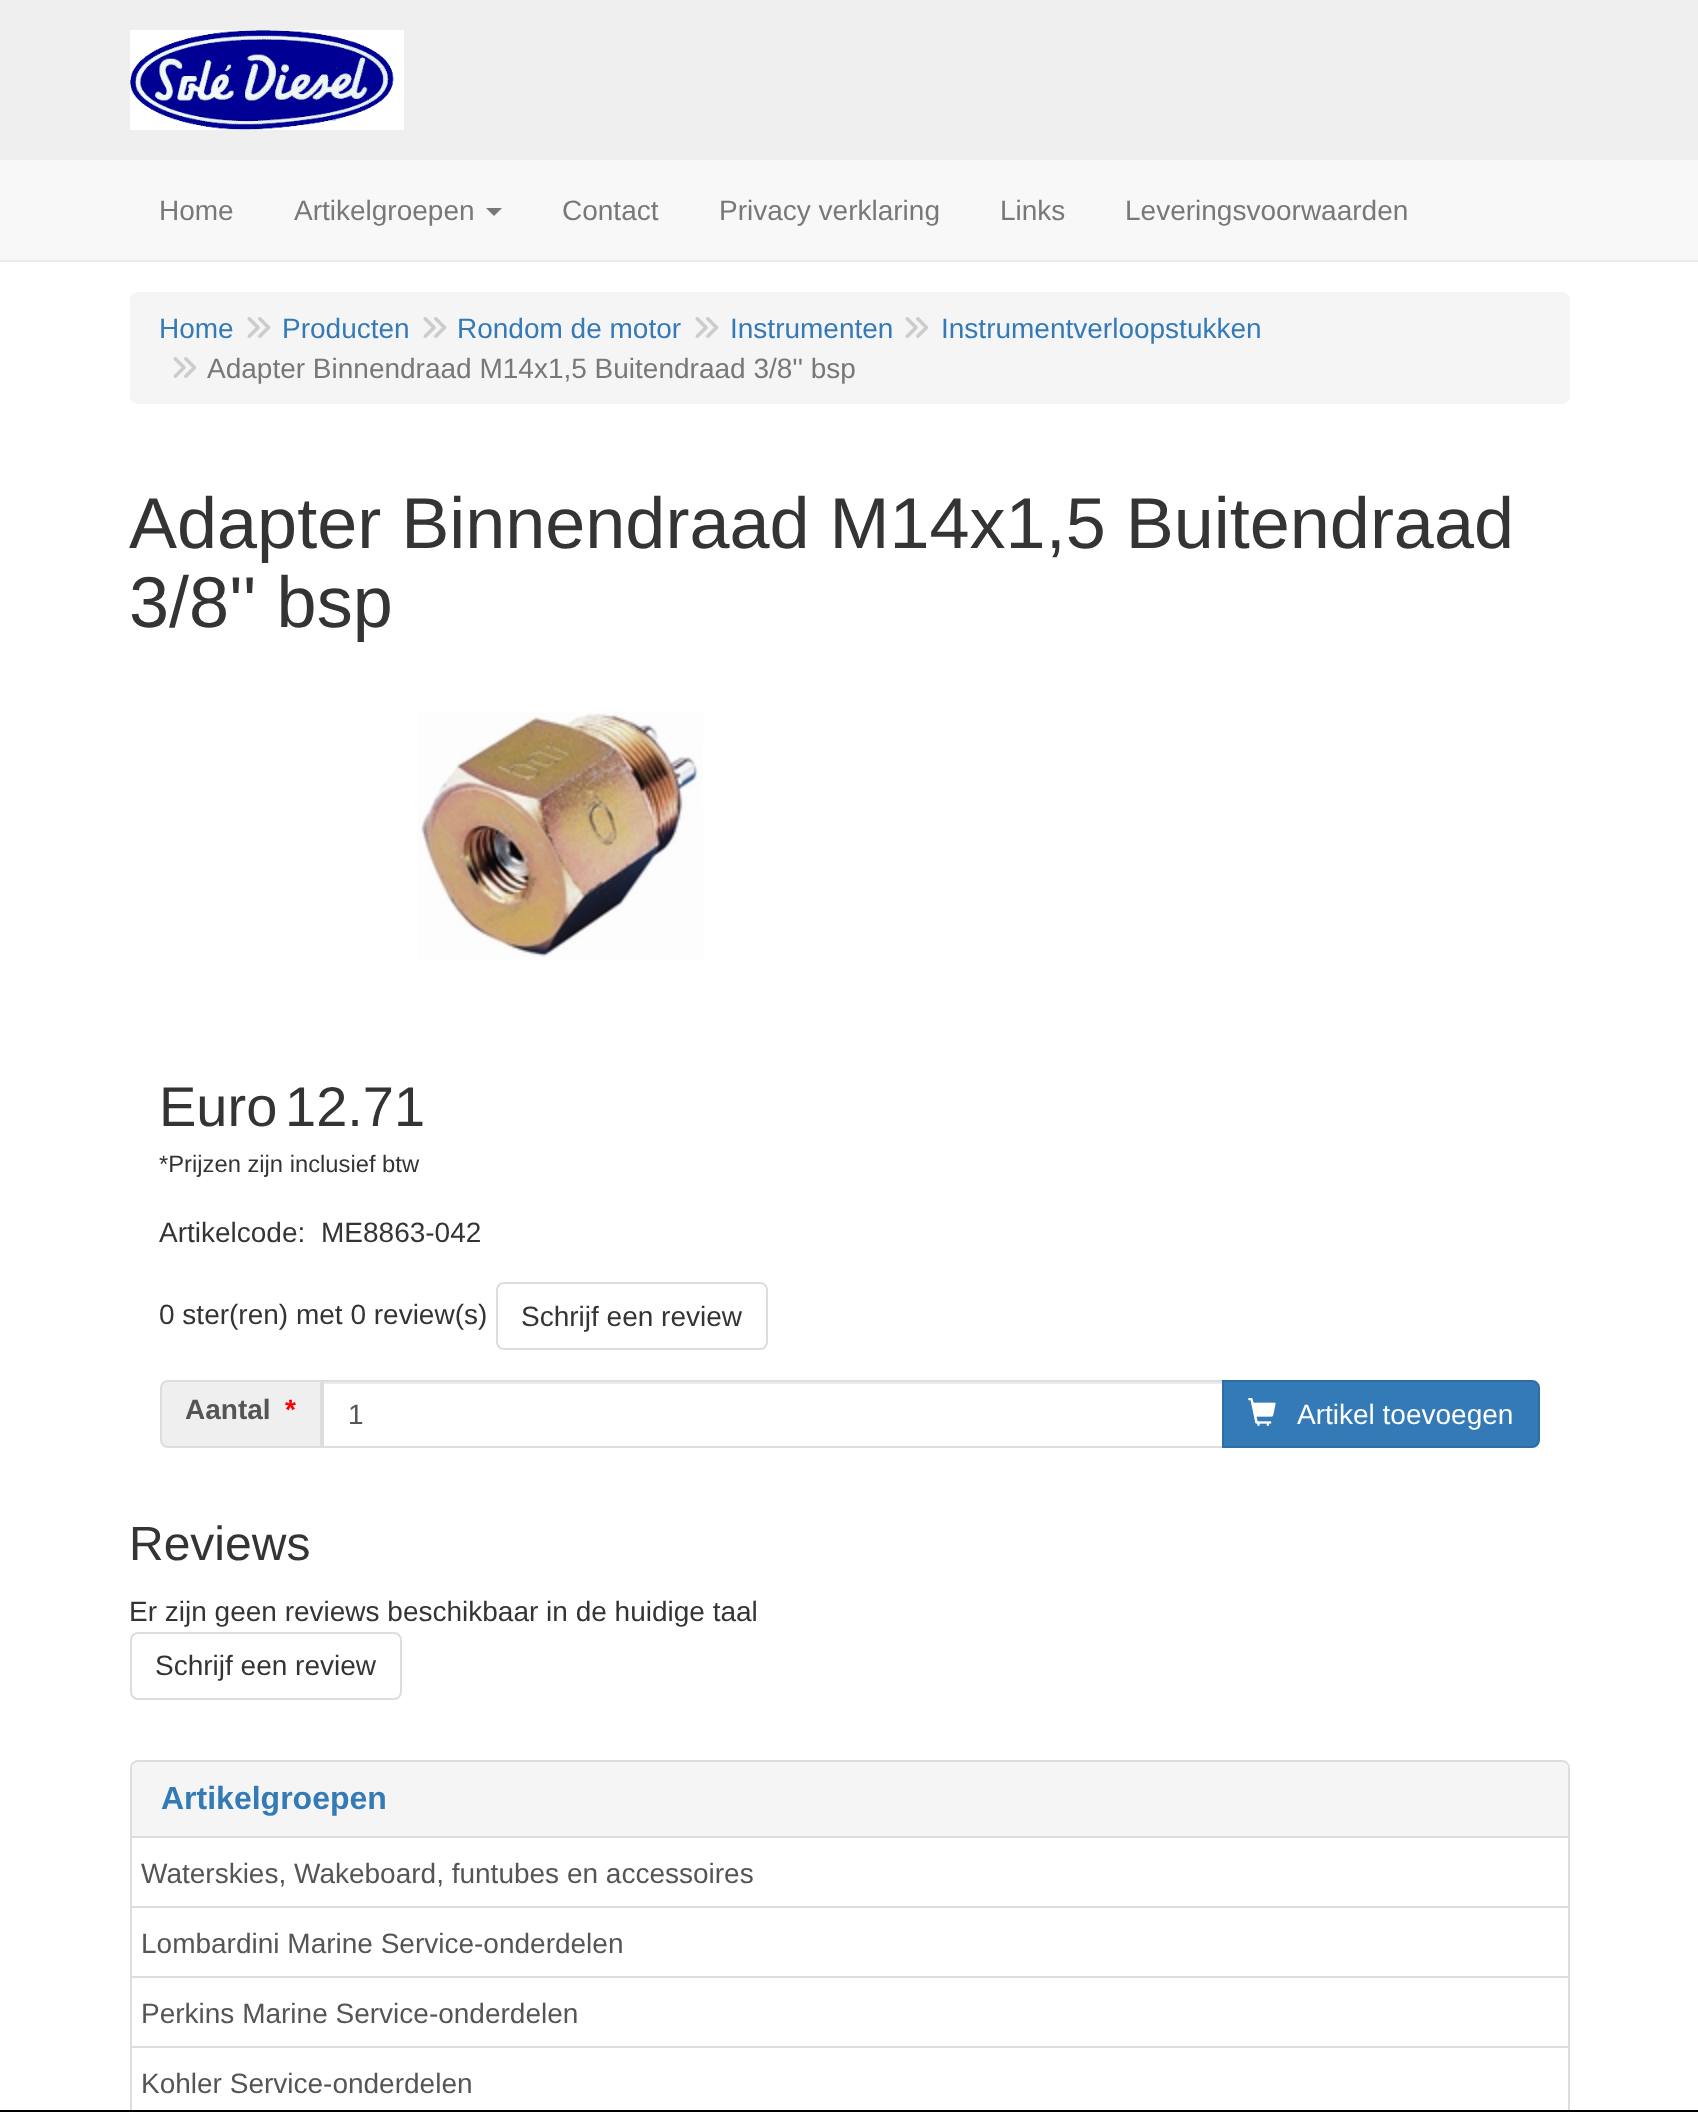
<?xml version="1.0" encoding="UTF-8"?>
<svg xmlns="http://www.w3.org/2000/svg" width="1698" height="2112">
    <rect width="100%" height="100%" fill="#FFFFFF"/>
    <rect x="0" y="0" width="1698" height="160" fill="#EFEFEF"/>
    <image x="130" y="30" width="274" height="100" href="img_01.png"/>
    <rect x="0" y="160" width="1698" height="100" fill="#F8F8F8"/>
    <rect x="0" y="260" width="1698" height="2" fill="#EBEBEB"/>
    <text x="159" y="220" font-family="Liberation Sans" font-size="28" fill="#787878">Home</text>
    <text x="294" y="220" font-family="Liberation Sans" font-size="28" fill="#787878">Artikelgroepen</text>
    <path d="M 486 208 H 502 L 494 216 Z" fill="#787878"/>
    <text x="562" y="220" font-family="Liberation Sans" font-size="28" fill="#787878">Contact</text>
    <text x="719" y="220" font-family="Liberation Sans" font-size="28" fill="#787878">Privacy verklaring</text>
    <text x="1000" y="220" font-family="Liberation Sans" font-size="28" fill="#787878">Links</text>
    <text x="1125" y="220" font-family="Liberation Sans" font-size="28" fill="#787878">Leveringsvoorwaarden</text>
    <rect x="130" y="292" width="1440" height="112" rx="8" fill="#F5F5F5"/>
    <text x="159" y="338" font-family="Liberation Sans" font-size="28" fill="#337AB7">Home</text>
    <image x="247" y="317" width="24" height="21" href="img_02.png"/>
    <text x="282" y="338" font-family="Liberation Sans" font-size="28" fill="#337AB7">Producten</text>
    <image x="423" y="317" width="24" height="21" href="img_02.png"/>
    <text x="457" y="338" font-family="Liberation Sans" font-size="28" fill="#337AB7">Rondom de motor</text>
    <image x="695" y="317" width="24" height="21" href="img_02.png"/>
    <text x="730" y="338" font-family="Liberation Sans" font-size="28" fill="#337AB7">Instrumenten</text>
    <image x="905" y="317" width="24" height="21" href="img_02.png"/>
    <text x="941" y="338" font-family="Liberation Sans" font-size="28" fill="#337AB7">Instrumentverloopstukken</text>
    <image x="173" y="357" width="24" height="21" href="img_02.png"/>
    <text x="207" y="378" font-family="Liberation Sans" font-size="28" fill="#787878">Adapter Binnendraad M14x1,5 Buitendraad 3/8'' bsp</text>
    <text font-family="Liberation Sans" font-size="72" fill="#343434">
        <tspan x="129" y="548">Adapter Binnendraad M14x1,5 Buitendraad</tspan>
        <tspan x="129" y="627">3/8'' bsp</tspan>
    </text>
    <image x="418" y="712" width="285" height="248" href="img_03.png"/>
    <text x="159" y="1126" font-family="Liberation Sans" font-size="56" fill="#343434">Euro</text>
    <text x="285" y="1126" font-family="Liberation Sans" font-size="56" fill="#343434">12.71</text>
    <text x="159" y="1172" font-family="Liberation Sans" font-size="23.75" fill="#343434">*Prijzen zijn inclusief btw</text>
    <text x="159" y="1242" font-family="Liberation Sans" font-size="28" fill="#343434">Artikelcode:</text>
    <text x="321" y="1242" font-family="Liberation Sans" font-size="28" fill="#343434">ME8863-042</text>
    <text x="159" y="1324" font-family="Liberation Sans" font-size="28" fill="#343434">0 ster(ren) met 0 review(s)</text>
    <rect x="497" y="1283" width="270" height="66" rx="7" fill="none" stroke="#DDDDDD" stroke-width="2"/>
    <text x="521" y="1326" font-family="Liberation Sans" font-size="28" fill="#343434">Schrijf een review</text>
    <path d="M 168 1381 H 321 V 1447 H 168 C 164 1447 161 1444 161 1440 V 1388 C 161 1384 164 1381 168 1381 Z" fill="#EFEFEF" stroke="#DDDDDD" stroke-width="2"/>
    <text x="185" y="1419" font-family="Liberation Sans" font-size="28" font-weight="700" fill="#555555">Aantal</text>
    <text x="285" y="1419" font-family="Liberation Sans" font-size="28" font-weight="700" fill="#FF0000">*</text>
    <rect x="324" y="1382" width="898" height="2" fill="#ECECEC"/>
    <rect x="323" y="1381" width="900" height="66" fill="none" stroke="#DDDDDD" stroke-width="2"/>
    <text x="348" y="1424" font-family="Liberation Sans" font-size="28" fill="#555555">1</text>
    <path d="M 1223 1381 H 1532 C 1536 1381 1539 1384 1539 1388 V 1440 C 1539 1444 1536 1447 1532 1447 H 1223 Z" fill="#337AB7" stroke="#2E6DA4" stroke-width="2"/>
    <image x="1248" y="1398" width="28" height="28" href="img_04.png"/>
    <text x="1297" y="1424" font-family="Liberation Sans" font-size="28" fill="#FEFEFE">Artikel toevoegen</text>
    <text x="129" y="1560" font-family="Liberation Sans" font-size="48" fill="#343434">Reviews</text>
    <text x="129" y="1621" font-family="Liberation Sans" font-size="28" fill="#343434">Er zijn geen reviews beschikbaar in de huidige taal</text>
    <rect x="131" y="1633" width="270" height="66" rx="7" fill="none" stroke="#DDDDDD" stroke-width="2"/>
    <text x="155" y="1675" font-family="Liberation Sans" font-size="28" fill="#343434">Schrijf een review</text>
    <rect x="131" y="1761" width="1438" height="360" rx="7" fill="none" stroke="#DDDDDD" stroke-width="2"/>
    <path d="M 138 1762 H 1562 C 1565.5 1762 1568 1764.5 1568 1768 V 1838 H 132 V 1768 C 132 1764.5 134.5 1762 138 1762 Z" fill="#F5F5F5"/>
    <rect x="132" y="1836" width="1436" height="2" fill="#DDDDDD"/>
    <text x="161" y="1809" font-family="Liberation Sans" font-size="32" font-weight="700" fill="#337AB7">Artikelgroepen</text>
    <text x="141" y="1883" font-family="Liberation Sans" font-size="28" fill="#555555">Waterskies, Wakeboard, funtubes en accessoires</text>
    <rect x="132" y="1906" width="1436" height="2" fill="#DDDDDD"/>
    <text x="141" y="1953" font-family="Liberation Sans" font-size="28" fill="#555555">Lombardini Marine Service-onderdelen</text>
    <rect x="132" y="1976" width="1436" height="2" fill="#DDDDDD"/>
    <text x="141" y="2023" font-family="Liberation Sans" font-size="28" fill="#555555">Perkins Marine Service-onderdelen</text>
    <rect x="132" y="2046" width="1436" height="2" fill="#DDDDDD"/>
    <text x="141" y="2093" font-family="Liberation Sans" font-size="28" fill="#555555">Kohler Service-onderdelen</text>
    <rect x="0" y="2110" width="1698" height="2" fill="#000000"/>
</svg>
